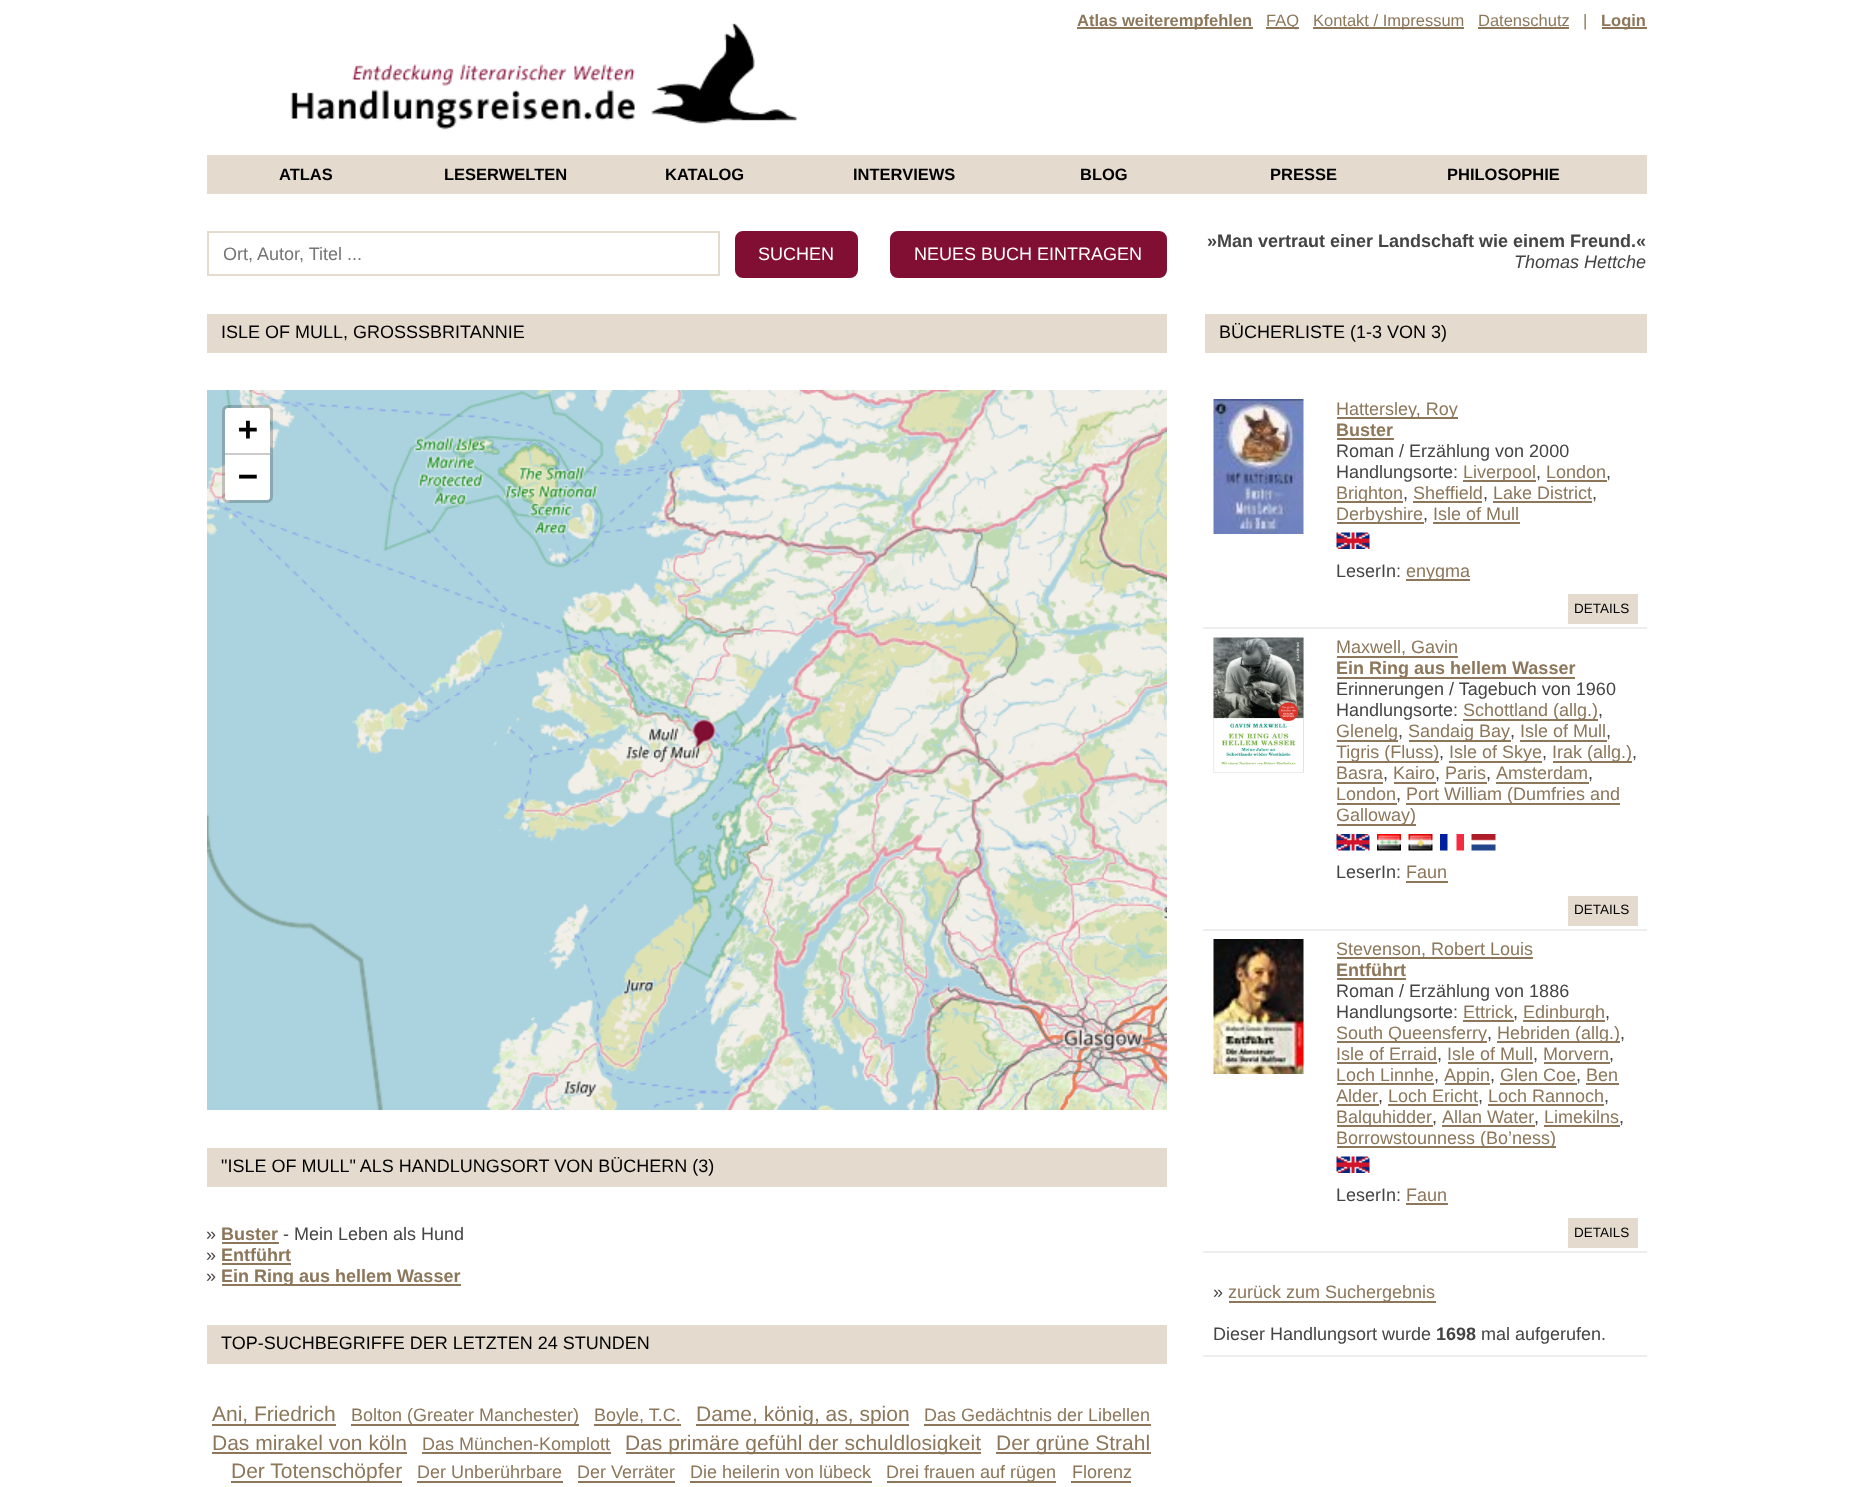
<?xml version="1.0" encoding="UTF-8"?>
<svg xmlns="http://www.w3.org/2000/svg" width="1852" height="1487">
    <defs>
        <clipPath id="clip1"><rect x="224" y="243" width="495" height="21"/></clipPath>
    </defs>
    <rect width="100%" height="100%" fill="#FFFFFF"/>
    <image x="290" y="23" width="507" height="107" href="img_01.png"/>
    <rect x="1077" y="27" width="176" height="2" fill="#8C775B"/>
    <text x="1077" y="26" font-family="Liberation Sans" font-size="16.5" font-weight="700" fill="#8C775B">Atlas weiterempfehlen</text>
    <rect x="1266" y="27" width="33" height="2" fill="#8C775B"/>
    <text x="1266" y="26" font-family="Liberation Sans" font-size="16.5" fill="#8C775B">FAQ</text>
    <rect x="1313" y="27" width="151" height="2" fill="#8C775B"/>
    <text x="1313" y="26" font-family="Liberation Sans" font-size="16.5" fill="#8C775B">Kontakt / Impressum</text>
    <text x="1478" y="26" font-family="Liberation Sans" font-size="16.5" fill="#8C775B">Datenschutz</text>
    <rect x="1478" y="27" width="91" height="2" fill="#8C775B"/>
    <text x="1583" y="26" font-family="Liberation Sans" font-size="16.5" fill="#8C775B">|</text>
    <rect x="1602" y="27" width="45" height="2" fill="#8C775B"/>
    <text x="1601" y="26" font-family="Liberation Sans" font-size="16.5" font-weight="700" fill="#8C775B">Login</text>
    <rect x="207" y="155" width="1440" height="39" fill="#E4DBCE"/>
    <text x="279" y="180" font-family="Liberation Sans" font-size="16.5" font-weight="700" fill="#000000">ATLAS</text>
    <text x="444" y="180" font-family="Liberation Sans" font-size="16.5" font-weight="700" fill="#000000">LESERWELTEN</text>
    <text x="665" y="180" font-family="Liberation Sans" font-size="16.5" font-weight="700" fill="#000000">KATALOG</text>
    <text x="853" y="180" font-family="Liberation Sans" font-size="16.5" font-weight="700" fill="#000000">INTERVIEWS</text>
    <text x="1080" y="180" font-family="Liberation Sans" font-size="16.5" font-weight="700" fill="#000000">BLOG</text>
    <text x="1270" y="180" font-family="Liberation Sans" font-size="16.5" font-weight="700" fill="#000000">PRESSE</text>
    <text x="1447" y="180" font-family="Liberation Sans" font-size="16.5" font-weight="700" fill="#000000">PHILOSOPHIE</text>
    <rect x="208" y="232" width="511" height="43" fill="none" stroke="#E4DBCE" stroke-width="2"/>
    <g clip-path="url(#clip1)">
        <text x="223" y="260" font-family="Liberation Sans" font-size="18" fill="#757575">Ort, Autor, Titel ...</text>
    </g>
    <rect x="736" y="232" width="121" height="45" rx="7" fill="#810E33" stroke="#810E33" stroke-width="2"/>
    <text x="758" y="260" font-family="Liberation Sans" font-size="18" fill="#FFFFFF">SUCHEN</text>
    <rect x="891" y="232" width="275" height="45" rx="7" fill="#810E33" stroke="#810E33" stroke-width="2"/>
    <text x="914" y="260" font-family="Liberation Sans" font-size="18" fill="#FFFFFF">NEUES BUCH EINTRAGEN</text>
    <rect x="207" y="314" width="960" height="39" fill="#E4DBCE"/>
    <text x="221" y="338" font-family="Liberation Sans" font-size="18" fill="#000000">ISLE OF MULL, GROSSSBRITANNIE</text>
    <image x="207" y="390" width="137" height="305" href="img_02.png"/>
    <image x="344" y="390" width="384" height="305" href="img_03.png"/>
    <image x="727" y="390" width="385" height="305" href="img_04.png"/>
    <image x="344" y="695" width="384" height="384" href="img_07.png"/>
    <image x="727" y="695" width="385" height="384" href="img_08.png"/>
    <image x="344" y="1078" width="384" height="32" href="img_10.png"/>
    <image x="727" y="1078" width="385" height="32" href="img_11.png"/>
    <image x="1111" y="694" width="56" height="385" href="img_09.png"/>
    <image x="1111" y="390" width="56" height="305" href="img_05.png"/>
    <image x="207" y="695" width="137" height="384" href="img_06.png"/>
    <rect x="207" y="1079" width="137" height="31" fill="#AAD3DF"/>
    <image x="1111" y="1078" width="56" height="32" href="img_12.png"/>
    <image x="691" y="718" width="26" height="34" href="img_13.png"/>
    <rect x="223.5" y="406.5" width="48" height="95" rx="4.5" fill="none" stroke="#000000" stroke-opacity="0.2" stroke-width="3"/>
    <path d="M 228 408 H 267 C 268.5 408 270 409.5 270 411 V 455 H 225 V 411 C 225 409.5 226.5 408 228 408 Z" fill="#FFFFFF"/>
    <rect x="225" y="453" width="45" height="2" fill="#CCCCCC"/>
    <text x="238" y="440" font-family="DejaVu Sans Mono" font-size="33" font-weight="700" fill="#000000">+</text>
    <path d="M 225 455 H 270 V 497 C 270 498.5 268.5 500 267 500 H 228 C 226.5 500 225 498.5 225 497 Z" fill="#FFFFFF"/>
    <text x="238" y="487" font-family="DejaVu Sans Mono" font-size="33" font-weight="700" fill="#000000">−</text>
    <rect x="207" y="1148" width="960" height="39" fill="#E4DBCE"/>
    <text x="221" y="1172" font-family="Liberation Sans" font-size="18" fill="#000000">"ISLE OF MULL" ALS HANDLUNGSORT VON BÜCHERN (3)</text>
    <text x="206" y="1240" font-family="Liberation Sans" font-size="18" fill="#444444">»</text>
    <text x="221" y="1240" font-family="Liberation Sans" font-size="18" font-weight="700" fill="#8C775B">Buster</text>
    <rect x="222" y="1242" width="57" height="2" fill="#8C775B"/>
    <text x="283" y="1240" font-family="Liberation Sans" font-size="18" fill="#444444">- Mein Leben als Hund</text>
    <text x="206" y="1261" font-family="Liberation Sans" font-size="18" fill="#444444">»</text>
    <text x="221" y="1261" font-family="Liberation Sans" font-size="18" font-weight="700" fill="#8C775B">Entführt</text>
    <rect x="222" y="1263" width="69" height="2" fill="#8C775B"/>
    <text x="206" y="1282" font-family="Liberation Sans" font-size="18" fill="#444444">»</text>
    <rect x="222" y="1284" width="239" height="2" fill="#8C775B"/>
    <text x="221" y="1282" font-family="Liberation Sans" font-size="18" font-weight="700" fill="#8C775B">Ein Ring aus hellem Wasser</text>
    <rect x="207" y="1325" width="960" height="39" fill="#E4DBCE"/>
    <text x="221" y="1349" font-family="Liberation Sans" font-size="18" fill="#000000">TOP-SUCHBEGRIFFE DER LETZTEN 24 STUNDEN</text>
    <text x="212" y="1421" font-family="Liberation Sans" font-size="21" fill="#8C775B">Ani, Friedrich</text>
    <rect x="212" y="1424" width="124" height="2" fill="#8C775B"/>
    <rect x="351" y="1424" width="228" height="2" fill="#8C775B"/>
    <text x="351" y="1421" font-family="Liberation Sans" font-size="18" fill="#8C775B">Bolton (Greater Manchester)</text>
    <rect x="594" y="1424" width="87" height="2" fill="#8C775B"/>
    <text x="594" y="1421" font-family="Liberation Sans" font-size="18" fill="#8C775B">Boyle, T.C.</text>
    <rect x="696" y="1424" width="213" height="2" fill="#8C775B"/>
    <text x="696" y="1421" font-family="Liberation Sans" font-size="21" fill="#8C775B">Dame, könig, as, spion</text>
    <text x="924" y="1421" font-family="Liberation Sans" font-size="18" fill="#8C775B">Das Gedächtnis der Libellen</text>
    <rect x="924" y="1424" width="227" height="2" fill="#8C775B"/>
    <text x="212" y="1450" font-family="Liberation Sans" font-size="21" fill="#8C775B">Das mirakel von köln</text>
    <rect x="212" y="1452" width="195" height="2" fill="#8C775B"/>
    <rect x="422" y="1452" width="189" height="2" fill="#8C775B"/>
    <text x="422" y="1450" font-family="Liberation Sans" font-size="18" fill="#8C775B">Das München-Komplott</text>
    <rect x="626" y="1452" width="355" height="2" fill="#8C775B"/>
    <text x="625" y="1450" font-family="Liberation Sans" font-size="21" fill="#8C775B">Das primäre gefühl der schuldlosigkeit</text>
    <rect x="996" y="1452" width="155" height="2" fill="#8C775B"/>
    <text x="996" y="1450" font-family="Liberation Sans" font-size="21" fill="#8C775B">Der grüne Strahl</text>
    <rect x="231" y="1481" width="171" height="2" fill="#8C775B"/>
    <text x="231" y="1478" font-family="Liberation Sans" font-size="21" fill="#8C775B">Der Totenschöpfer</text>
    <text x="417" y="1478" font-family="Liberation Sans" font-size="18" fill="#8C775B">Der Unberührbare</text>
    <rect x="417" y="1481" width="146" height="2" fill="#8C775B"/>
    <text x="577" y="1478" font-family="Liberation Sans" font-size="18" fill="#8C775B">Der Verräter</text>
    <rect x="578" y="1481" width="97" height="2" fill="#8C775B"/>
    <text x="690" y="1478" font-family="Liberation Sans" font-size="18" fill="#8C775B">Die heilerin von lübeck</text>
    <rect x="690" y="1481" width="182" height="2" fill="#8C775B"/>
    <rect x="887" y="1481" width="169" height="2" fill="#8C775B"/>
    <text x="886" y="1478" font-family="Liberation Sans" font-size="18" fill="#8C775B">Drei frauen auf rügen</text>
    <text x="1072" y="1478" font-family="Liberation Sans" font-size="18" fill="#8C775B">Florenz</text>
    <rect x="1071" y="1481" width="60" height="2" fill="#8C775B"/>
    <text x="1207" y="247" font-family="Liberation Sans" font-size="18" font-weight="700" fill="#444444">»Man vertraut einer Landschaft wie einem Freund.«</text>
    <text x="1514" y="268" font-family="Liberation Sans" font-size="18" font-style="italic" fill="#444444">Thomas Hettche</text>
    <rect x="1205" y="314" width="442" height="39" fill="#E4DBCE"/>
    <text x="1219" y="338" font-family="Liberation Sans" font-size="18" fill="#000000">BÜCHERLISTE (1-3 VON 3)</text>
    <image x="1213" y="399" width="91" height="135" href="img_14.png"/>
    <rect x="1203" y="627" width="444" height="2" fill="#EEEEEE"/>
    <rect x="1337" y="417" width="121" height="2" fill="#8C775B"/>
    <text x="1336" y="415" font-family="Liberation Sans" font-size="18" fill="#8C775B">Hattersley, Roy</text>
    <text x="1336" y="436" font-family="Liberation Sans" font-size="18" font-weight="700" fill="#8C775B">Buster</text>
    <rect x="1337" y="438" width="57" height="2" fill="#8C775B"/>
    <text font-family="Liberation Sans" font-size="18" fill="#444444">
        <tspan x="1336" y="457">Roman / Erzählung von 2000</tspan>
        <tspan x="1336" y="478">Handlungsorte:</tspan>
    </text>
    <rect x="1463" y="480" width="73" height="2" fill="#8C775B"/>
    <text x="1463" y="478" font-family="Liberation Sans" font-size="18" fill="#8C775B">Liverpool</text>
    <text x="1536" y="478" font-family="Liberation Sans" font-size="18" fill="#444444">,</text>
    <text x="1546" y="478" font-family="Liberation Sans" font-size="18" fill="#8C775B">London</text>
    <rect x="1547" y="480" width="60" height="2" fill="#8C775B"/>
    <text x="1606" y="478" font-family="Liberation Sans" font-size="18" fill="#444444">,</text>
    <rect x="1337" y="501" width="66" height="2" fill="#8C775B"/>
    <text x="1336" y="499" font-family="Liberation Sans" font-size="18" fill="#8C775B">Brighton</text>
    <text x="1403" y="499" font-family="Liberation Sans" font-size="18" fill="#444444">,</text>
    <text x="1413" y="499" font-family="Liberation Sans" font-size="18" fill="#8C775B">Sheffield</text>
    <rect x="1413" y="501" width="69" height="2" fill="#8C775B"/>
    <text x="1483" y="499" font-family="Liberation Sans" font-size="18" fill="#444444">,</text>
    <text x="1493" y="499" font-family="Liberation Sans" font-size="18" fill="#8C775B">Lake District</text>
    <rect x="1493" y="501" width="99" height="2" fill="#8C775B"/>
    <text x="1592" y="499" font-family="Liberation Sans" font-size="18" fill="#444444">,</text>
    <rect x="1337" y="522" width="87" height="2" fill="#8C775B"/>
    <text x="1336" y="520" font-family="Liberation Sans" font-size="18" fill="#8C775B">Derbyshire</text>
    <text x="1423" y="520" font-family="Liberation Sans" font-size="18" fill="#444444">,</text>
    <text x="1433" y="520" font-family="Liberation Sans" font-size="18" fill="#8C775B">Isle of Mull</text>
    <rect x="1433" y="522" width="87" height="2" fill="#8C775B"/>
    <image x="1336" y="532" width="34" height="17" href="img_15.png"/>
    <text x="1336" y="577" font-family="Liberation Sans" font-size="18" fill="#444444">LeserIn:</text>
    <rect x="1406" y="579" width="64" height="2" fill="#8C775B"/>
    <text x="1406" y="577" font-family="Liberation Sans" font-size="18" fill="#8C775B">enygma</text>
    <rect x="1568" y="594" width="70" height="30" fill="#E4DBCE"/>
    <text x="1574" y="613" font-family="Liberation Sans" font-size="13.5" fill="#000000">DETAILS</text>
    <image x="1213" y="637" width="91" height="136" href="img_16.png"/>
    <rect x="1203" y="929" width="444" height="2" fill="#EEEEEE"/>
    <text x="1336" y="653" font-family="Liberation Sans" font-size="18" fill="#8C775B">Maxwell, Gavin</text>
    <rect x="1337" y="656" width="121" height="2" fill="#8C775B"/>
    <rect x="1337" y="677" width="238" height="2" fill="#8C775B"/>
    <text x="1336" y="674" font-family="Liberation Sans" font-size="18" font-weight="700" fill="#8C775B">Ein Ring aus hellem Wasser</text>
    <text font-family="Liberation Sans" font-size="18" fill="#444444">
        <tspan x="1336" y="695">Erinnerungen / Tagebuch von 1960</tspan>
        <tspan x="1336" y="716">Handlungsorte:</tspan>
    </text>
    <rect x="1463" y="719" width="135" height="2" fill="#8C775B"/>
    <text x="1463" y="716" font-family="Liberation Sans" font-size="18" fill="#8C775B">Schottland (allg.)</text>
    <text x="1598" y="716" font-family="Liberation Sans" font-size="18" fill="#444444">,</text>
    <rect x="1337" y="740" width="61" height="2" fill="#8C775B"/>
    <text x="1336" y="737" font-family="Liberation Sans" font-size="18" fill="#8C775B">Glenelg</text>
    <text x="1398" y="737" font-family="Liberation Sans" font-size="18" fill="#444444">,</text>
    <rect x="1409" y="740" width="102" height="2" fill="#8C775B"/>
    <text x="1408" y="737" font-family="Liberation Sans" font-size="18" fill="#8C775B">Sandaig Bay</text>
    <text x="1510" y="737" font-family="Liberation Sans" font-size="18" fill="#444444">,</text>
    <text x="1520" y="737" font-family="Liberation Sans" font-size="18" fill="#8C775B">Isle of Mull</text>
    <rect x="1520" y="740" width="87" height="2" fill="#8C775B"/>
    <text x="1606" y="737" font-family="Liberation Sans" font-size="18" fill="#444444">,</text>
    <rect x="1337" y="761" width="102" height="2" fill="#8C775B"/>
    <text x="1336" y="758" font-family="Liberation Sans" font-size="18" fill="#8C775B">Tigris (Fluss)</text>
    <text x="1439" y="758" font-family="Liberation Sans" font-size="18" fill="#444444">,</text>
    <rect x="1449" y="761" width="93" height="2" fill="#8C775B"/>
    <text x="1449" y="758" font-family="Liberation Sans" font-size="18" fill="#8C775B">Isle of Skye</text>
    <text x="1542" y="758" font-family="Liberation Sans" font-size="18" fill="#444444">,</text>
    <rect x="1553" y="761" width="79" height="2" fill="#8C775B"/>
    <text x="1552" y="758" font-family="Liberation Sans" font-size="18" fill="#8C775B">Irak (allg.)</text>
    <text x="1632" y="758" font-family="Liberation Sans" font-size="18" fill="#444444">,</text>
    <text x="1336" y="779" font-family="Liberation Sans" font-size="18" fill="#8C775B">Basra</text>
    <rect x="1337" y="782" width="46" height="2" fill="#8C775B"/>
    <text x="1383" y="779" font-family="Liberation Sans" font-size="18" fill="#444444">,</text>
    <text x="1393" y="779" font-family="Liberation Sans" font-size="18" fill="#8C775B">Kairo</text>
    <rect x="1394" y="782" width="42" height="2" fill="#8C775B"/>
    <text x="1435" y="779" font-family="Liberation Sans" font-size="18" fill="#444444">,</text>
    <text x="1445" y="779" font-family="Liberation Sans" font-size="18" fill="#8C775B">Paris</text>
    <rect x="1445" y="782" width="42" height="2" fill="#8C775B"/>
    <text x="1486" y="779" font-family="Liberation Sans" font-size="18" fill="#444444">,</text>
    <text x="1496" y="779" font-family="Liberation Sans" font-size="18" fill="#8C775B">Amsterdam</text>
    <rect x="1496" y="782" width="93" height="2" fill="#8C775B"/>
    <text x="1588" y="779" font-family="Liberation Sans" font-size="18" fill="#444444">,</text>
    <text x="1336" y="800" font-family="Liberation Sans" font-size="18" fill="#8C775B">London</text>
    <rect x="1337" y="803" width="60" height="2" fill="#8C775B"/>
    <text x="1396" y="800" font-family="Liberation Sans" font-size="18" fill="#444444">,</text>
    <rect x="1406" y="803" width="214" height="2" fill="#8C775B"/>
    <text x="1406" y="800" font-family="Liberation Sans" font-size="18" fill="#8C775B">Port William (Dumfries and</text>
    <rect x="1337" y="824" width="79" height="2" fill="#8C775B"/>
    <text x="1336" y="821" font-family="Liberation Sans" font-size="18" fill="#8C775B">Galloway)</text>
    <image x="1336" y="834" width="34" height="17" href="img_17.png"/>
    <image x="1377" y="834" width="24" height="17" href="img_18.png"/>
    <image x="1408" y="834" width="25" height="17" href="img_19.png"/>
    <image x="1440" y="834" width="24" height="17" href="img_20.png"/>
    <image x="1471" y="834" width="25" height="17" href="img_21.png"/>
    <text x="1336" y="878" font-family="Liberation Sans" font-size="18" fill="#444444">LeserIn:</text>
    <text x="1406" y="878" font-family="Liberation Sans" font-size="18" fill="#8C775B">Faun</text>
    <rect x="1406" y="881" width="42" height="2" fill="#8C775B"/>
    <rect x="1568" y="896" width="70" height="30" fill="#E4DBCE"/>
    <text x="1574" y="914" font-family="Liberation Sans" font-size="13.5" fill="#000000">DETAILS</text>
    <image x="1213" y="939" width="91" height="135" href="img_22.png"/>
    <rect x="1203" y="1251" width="444" height="2" fill="#EEEEEE"/>
    <rect x="1337" y="957" width="196" height="2" fill="#8C775B"/>
    <text x="1336" y="955" font-family="Liberation Sans" font-size="18" fill="#8C775B">Stevenson, Robert Louis</text>
    <text x="1336" y="976" font-family="Liberation Sans" font-size="18" font-weight="700" fill="#8C775B">Entführt</text>
    <rect x="1337" y="978" width="69" height="2" fill="#8C775B"/>
    <text font-family="Liberation Sans" font-size="18" fill="#444444">
        <tspan x="1336" y="997">Roman / Erzählung von 1886</tspan>
        <tspan x="1336" y="1018">Handlungsorte:</tspan>
    </text>
    <text x="1463" y="1018" font-family="Liberation Sans" font-size="18" fill="#8C775B">Ettrick</text>
    <rect x="1463" y="1020" width="51" height="2" fill="#8C775B"/>
    <text x="1513" y="1018" font-family="Liberation Sans" font-size="18" fill="#444444">,</text>
    <rect x="1523" y="1020" width="82" height="2" fill="#8C775B"/>
    <text x="1523" y="1018" font-family="Liberation Sans" font-size="18" fill="#8C775B">Edinburgh</text>
    <text x="1605" y="1018" font-family="Liberation Sans" font-size="18" fill="#444444">,</text>
    <rect x="1337" y="1041" width="150" height="2" fill="#8C775B"/>
    <text x="1336" y="1039" font-family="Liberation Sans" font-size="18" fill="#8C775B">South Queensferry</text>
    <text x="1487" y="1039" font-family="Liberation Sans" font-size="18" fill="#444444">,</text>
    <rect x="1497" y="1041" width="123" height="2" fill="#8C775B"/>
    <text x="1497" y="1039" font-family="Liberation Sans" font-size="18" fill="#8C775B">Hebriden (allg.)</text>
    <text x="1620" y="1039" font-family="Liberation Sans" font-size="18" fill="#444444">,</text>
    <text x="1336" y="1060" font-family="Liberation Sans" font-size="18" fill="#8C775B">Isle of Erraid</text>
    <rect x="1337" y="1062" width="100" height="2" fill="#8C775B"/>
    <text x="1437" y="1060" font-family="Liberation Sans" font-size="18" fill="#444444">,</text>
    <text x="1447" y="1060" font-family="Liberation Sans" font-size="18" fill="#8C775B">Isle of Mull</text>
    <rect x="1448" y="1062" width="85" height="2" fill="#8C775B"/>
    <text x="1533" y="1060" font-family="Liberation Sans" font-size="18" fill="#444444">,</text>
    <text x="1543" y="1060" font-family="Liberation Sans" font-size="18" fill="#8C775B">Morvern</text>
    <rect x="1544" y="1062" width="66" height="2" fill="#8C775B"/>
    <text x="1609" y="1060" font-family="Liberation Sans" font-size="18" fill="#444444">,</text>
    <text x="1336" y="1081" font-family="Liberation Sans" font-size="18" fill="#8C775B">Loch Linnhe</text>
    <rect x="1337" y="1083" width="97" height="2" fill="#8C775B"/>
    <text x="1434" y="1081" font-family="Liberation Sans" font-size="18" fill="#444444">,</text>
    <rect x="1445" y="1083" width="45" height="2" fill="#8C775B"/>
    <text x="1444" y="1081" font-family="Liberation Sans" font-size="18" fill="#8C775B">Appin</text>
    <text x="1490" y="1081" font-family="Liberation Sans" font-size="18" fill="#444444">,</text>
    <text x="1500" y="1081" font-family="Liberation Sans" font-size="18" fill="#8C775B">Glen Coe</text>
    <rect x="1500" y="1083" width="77" height="2" fill="#8C775B"/>
    <text x="1576" y="1081" font-family="Liberation Sans" font-size="18" fill="#444444">,</text>
    <text x="1586" y="1081" font-family="Liberation Sans" font-size="18" fill="#8C775B">Ben</text>
    <rect x="1586" y="1083" width="33" height="2" fill="#8C775B"/>
    <text x="1336" y="1102" font-family="Liberation Sans" font-size="18" fill="#8C775B">Alder</text>
    <rect x="1337" y="1104" width="42" height="2" fill="#8C775B"/>
    <text x="1378" y="1102" font-family="Liberation Sans" font-size="18" fill="#444444">,</text>
    <text x="1388" y="1102" font-family="Liberation Sans" font-size="18" fill="#8C775B">Loch Ericht</text>
    <rect x="1388" y="1104" width="90" height="2" fill="#8C775B"/>
    <text x="1478" y="1102" font-family="Liberation Sans" font-size="18" fill="#444444">,</text>
    <text x="1488" y="1102" font-family="Liberation Sans" font-size="18" fill="#8C775B">Loch Rannoch</text>
    <rect x="1488" y="1104" width="116" height="2" fill="#8C775B"/>
    <text x="1604" y="1102" font-family="Liberation Sans" font-size="18" fill="#444444">,</text>
    <rect x="1337" y="1125" width="96" height="2" fill="#8C775B"/>
    <text x="1336" y="1123" font-family="Liberation Sans" font-size="18" fill="#8C775B">Balquhidder</text>
    <text x="1432" y="1123" font-family="Liberation Sans" font-size="18" fill="#444444">,</text>
    <text x="1442" y="1123" font-family="Liberation Sans" font-size="18" fill="#8C775B">Allan Water</text>
    <rect x="1442" y="1125" width="93" height="2" fill="#8C775B"/>
    <text x="1534" y="1123" font-family="Liberation Sans" font-size="18" fill="#444444">,</text>
    <text x="1544" y="1123" font-family="Liberation Sans" font-size="18" fill="#8C775B">Limekilns</text>
    <rect x="1544" y="1125" width="76" height="2" fill="#8C775B"/>
    <text x="1619" y="1123" font-family="Liberation Sans" font-size="18" fill="#444444">,</text>
    <rect x="1337" y="1146" width="219" height="2" fill="#8C775B"/>
    <text x="1336" y="1144" font-family="Liberation Sans" font-size="18" fill="#8C775B">Borrowstounness (Bo’ness)</text>
    <image x="1336" y="1156" width="34" height="17" href="img_15.png"/>
    <text x="1336" y="1201" font-family="Liberation Sans" font-size="18" fill="#444444">LeserIn:</text>
    <text x="1406" y="1201" font-family="Liberation Sans" font-size="18" fill="#8C775B">Faun</text>
    <rect x="1406" y="1203" width="42" height="2" fill="#8C775B"/>
    <rect x="1568" y="1218" width="70" height="30" fill="#E4DBCE"/>
    <text x="1574" y="1237" font-family="Liberation Sans" font-size="13.5" fill="#000000">DETAILS</text>
    <rect x="1203" y="1355" width="444" height="2" fill="#EEEEEE"/>
    <text x="1213" y="1298" font-family="Liberation Sans" font-size="18" fill="#444444">»</text>
    <rect x="1229" y="1301" width="207" height="2" fill="#8C775B"/>
    <text x="1228" y="1298" font-family="Liberation Sans" font-size="18" fill="#8C775B">zurück zum Suchergebnis</text>
    <text x="1213" y="1340" font-family="Liberation Sans" font-size="18" fill="#444444">Dieser Handlungsort wurde</text>
    <text x="1436" y="1340" font-family="Liberation Sans" font-size="18" font-weight="700" fill="#444444">1698</text>
    <text x="1481" y="1340" font-family="Liberation Sans" font-size="18" fill="#444444">mal aufgerufen.</text>
</svg>
